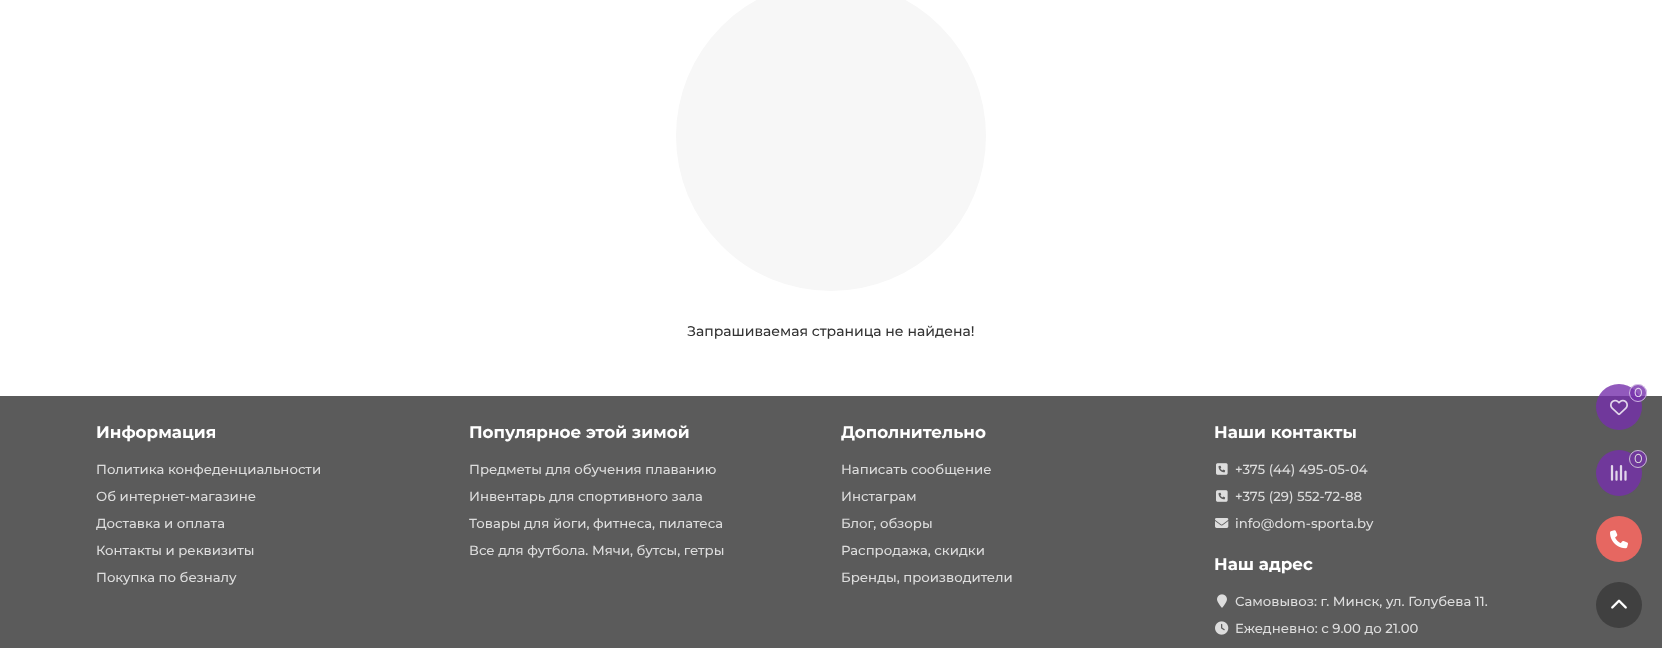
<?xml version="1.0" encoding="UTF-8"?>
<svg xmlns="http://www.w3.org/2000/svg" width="1662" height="648">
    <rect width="100%" height="100%" fill="#FFFFFF"/>
    <circle cx="831" cy="136" r="155" fill="#F7F7F7"/>
    <text x="687" y="336" font-family="Montserrat" font-size="14" font-weight="500" fill="#333333">Запрашиваемая страница не найдена!</text>
    <rect x="0" y="396" width="1662" height="252" fill="#5B5B5B"/>
    <text x="96" y="438" font-family="Montserrat" font-size="16.75" font-weight="700" fill="#FFFFFF">Информация</text>
    <text x="96" y="474" font-family="Montserrat" font-size="13.25" font-weight="500" fill="#DDDDDD">Политика конфеденциальности</text>
    <text x="96" y="501" font-family="Montserrat" font-size="13.25" font-weight="500" fill="#DDDDDD">Об интернет-магазине</text>
    <text x="96" y="528" font-family="Montserrat" font-size="13.25" font-weight="500" fill="#DDDDDD">Доставка и оплата</text>
    <text x="96" y="555" font-family="Montserrat" font-size="13.25" font-weight="500" fill="#DDDDDD">Контакты и реквизиты</text>
    <text x="96" y="582" font-family="Montserrat" font-size="13.25" font-weight="500" fill="#DDDDDD">Покупка по безналу</text>
    <text x="469" y="438" font-family="Montserrat" font-size="16.75" font-weight="700" fill="#FFFFFF">Популярное этой зимой</text>
    <text x="469" y="474" font-family="Montserrat" font-size="13.25" font-weight="500" fill="#DDDDDD">Предметы для обучения плаванию</text>
    <text x="469" y="501" font-family="Montserrat" font-size="13.25" font-weight="500" fill="#DDDDDD">Инвентарь для спортивного зала</text>
    <text x="469" y="528" font-family="Montserrat" font-size="13.25" font-weight="500" fill="#DDDDDD">Товары для йоги, фитнеса, пилатеса</text>
    <text x="469" y="555" font-family="Montserrat" font-size="13.25" font-weight="500" fill="#DDDDDD">Все для футбола. Мячи, бутсы, гетры</text>
    <text x="841" y="438" font-family="Montserrat" font-size="16.75" font-weight="700" fill="#FFFFFF">Дополнительно</text>
    <text x="841" y="474" font-family="Montserrat" font-size="13.25" font-weight="500" fill="#DDDDDD">Написать сообщение</text>
    <text x="841" y="501" font-family="Montserrat" font-size="13.25" font-weight="500" fill="#DDDDDD">Инстаграм</text>
    <text x="841" y="528" font-family="Montserrat" font-size="13.25" font-weight="500" fill="#DDDDDD">Блог, обзоры</text>
    <text x="841" y="555" font-family="Montserrat" font-size="13.25" font-weight="500" fill="#DDDDDD">Распродажа, скидки</text>
    <text x="841" y="582" font-family="Montserrat" font-size="13.25" font-weight="500" fill="#DDDDDD">Бренды, производители</text>
    <text x="1214" y="438" font-family="Montserrat" font-size="16.75" font-weight="700" fill="#FFFFFF">Наши контакты</text>
    <image x="1216" y="463" width="12" height="12" href="img_01.png"/>
    <text x="1235" y="474" font-family="Montserrat" font-size="13.25" font-weight="500" fill="#DDDDDD">+375 (44) 495-05-04</text>
    <image x="1216" y="490" width="12" height="12" href="img_01.png"/>
    <text x="1235" y="501" font-family="Montserrat" font-size="13.25" font-weight="500" fill="#DDDDDD">+375 (29) 552-72-88</text>
    <image x="1215" y="518" width="14" height="10" href="img_02.png"/>
    <text x="1235" y="528" font-family="Montserrat" font-size="13.25" font-weight="500" fill="#DDDDDD">info@dom-sporta.by</text>
    <text x="1214" y="570" font-family="Montserrat" font-size="16.75" font-weight="700" fill="#FFFFFF">Наш адрес</text>
    <image x="1217" y="594" width="10" height="14" href="img_03.png"/>
    <text x="1235" y="606" font-family="Montserrat" font-size="13.25" font-weight="500" fill="#DDDDDD">Самовывоз: г. Минск, ул. Голубева 11.</text>
    <image x="1215" y="621" width="14" height="14" href="img_04.png"/>
    <text x="1235" y="633" font-family="Montserrat" font-size="13.25" font-weight="500" fill="#DDDDDD">Ежедневно: с 9.00 до 21.00</text>
    <circle cx="1619" cy="407" r="23" fill="#752FAB" fill-opacity="0.8"/>
    <circle cx="1638" cy="393" r="9" fill="#752FAB" fill-opacity="0.8"/>
    <circle cx="1638" cy="393" r="8.5" fill="none" stroke="#FFFFFF" stroke-opacity="0.64"/>
    <text x="1634" y="397" font-family="Montserrat" font-size="13" fill="#E7DBF0">0</text>
    <image x="1610" y="399" width="18" height="17" href="img_05.png"/>
    <circle cx="1619" cy="473" r="23" fill="#70389B"/>
    <circle cx="1638" cy="459" r="9" fill="#70389B"/>
    <circle cx="1638" cy="459" r="8.5" fill="none" stroke="#DEDEDE" stroke-opacity="0.8"/>
    <text x="1634" y="463" font-family="Montserrat" font-size="13" fill="#DDDDDD">0</text>
    <image x="1610" y="465" width="17" height="16" href="img_06.png"/>
    <circle cx="1619" cy="539" r="23" fill="#E66761"/>
    <image x="1610" y="530" width="18" height="19" href="img_07.png"/>
    <circle cx="1619" cy="605" r="23" fill="#404040"/>
    <image x="1611" y="599" width="16" height="10" href="img_08.png"/>
</svg>
